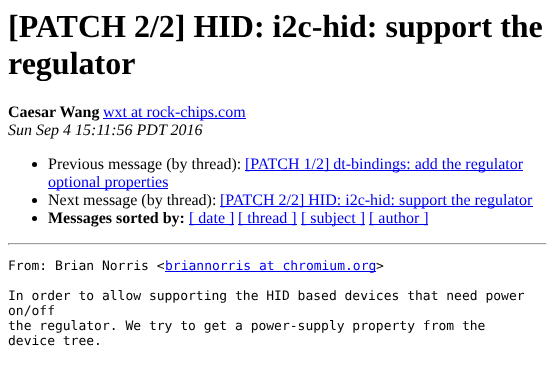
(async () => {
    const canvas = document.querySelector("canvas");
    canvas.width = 555;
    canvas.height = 365;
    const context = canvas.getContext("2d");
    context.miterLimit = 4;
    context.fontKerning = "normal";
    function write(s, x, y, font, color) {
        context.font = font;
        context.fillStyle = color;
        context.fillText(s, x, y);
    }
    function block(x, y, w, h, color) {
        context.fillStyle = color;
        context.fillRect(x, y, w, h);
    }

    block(0, 0, 555, 365, "rgb(255, 255, 255)");
    write("[PATCH 2/2] HID: i2c-hid: support the", 8, 37, "bold 32px Liberation Serif", "rgb(0, 0, 0)");
    write("regulator", 8, 74, "bold 32px Liberation Serif", "rgb(0, 0, 0)");
    write("Caesar Wang", 8, 117, "bold 16px Liberation Serif", "rgb(0, 0, 0)");
    block(103, 118, 143, 1, "rgb(0, 0, 238)");
    write("wxt at rock-chips.com", 103, 117, "16px Liberation Serif", "rgb(0, 0, 238)");
    write("Sun Sep 4 15:11:56 PDT 2016", 8, 135, "italic 16px Liberation Serif", "rgb(0, 0, 0)");
    context.beginPath();
    context.arc(34.5, 164.5, 2.5, 0, Math.PI * 2);
    context.fill();
    write("Previous message (by thread):", 48, 169, "16px Liberation Serif", "rgb(0, 0, 0)");
    block(245, 170, 278, 1, "rgb(0, 0, 238)");
    write("[PATCH 1/2] dt-bindings: add the regulator", 245, 169, "16px Liberation Serif", "rgb(0, 0, 238)");
    block(48, 188, 120, 1, "rgb(0, 0, 238)");
    write("optional properties", 48, 187, "16px Liberation Serif", "rgb(0, 0, 238)");
    context.fillStyle = "rgb(0, 0, 0)";
    context.beginPath();
    context.arc(34.5, 200.5, 2.5, 0, Math.PI * 2);
    context.fill();
    write("Next message (by thread):", 48, 205, "16px Liberation Serif", "rgb(0, 0, 0)");
    block(220, 206, 313, 1, "rgb(0, 0, 238)");
    write("[PATCH 2/2] HID: i2c-hid: support the regulator", 220, 205, "16px Liberation Serif", "rgb(0, 0, 238)");
    context.fillStyle = "rgb(0, 0, 0)";
    context.beginPath();
    context.arc(34.5, 218.5, 2.5, 0, Math.PI * 2);
    context.fill();
    write("Messages sorted by:", 48, 223, "bold 16px Liberation Serif", "rgb(0, 0, 0)");
    block(189, 224, 45, 1, "rgb(0, 0, 238)");
    write("[ date ]", 189, 223, "16px Liberation Serif", "rgb(0, 0, 238)");
    block(238, 224, 59, 1, "rgb(0, 0, 238)");
    write("[ thread ]", 238, 223, "16px Liberation Serif", "rgb(0, 0, 238)");
    block(301, 224, 64, 1, "rgb(0, 0, 238)");
    write("[ subject ]", 301, 223, "16px Liberation Serif", "rgb(0, 0, 238)");
    block(369, 224, 59, 1, "rgb(0, 0, 238)");
    write("[ author ]", 369, 223, "16px Liberation Serif", "rgb(0, 0, 238)");
    block(8, 243, 539, 1, "rgb(159, 159, 159)");
    block(546, 243, 1, 2, "rgb(238, 238, 238)");
    block(8, 244, 539, 1, "rgb(238, 238, 238)");
    block(8, 243, 1, 2, "rgb(159, 159, 159)");
    write("From: Brian Norris <", 8, 270, "13px DejaVu Sans Mono", "rgb(0, 0, 0)");
    block(165, 271, 211, 1, "rgb(0, 0, 238)");
    write("briannorris at chromium.org", 165, 270, "13px DejaVu Sans Mono", "rgb(0, 0, 238)");
    write(">", 376, 270, "13px DejaVu Sans Mono", "rgb(0, 0, 0)");
    write("In order to allow supporting the HID based devices that need power", 8, 300, "13px DejaVu Sans Mono", "rgb(0, 0, 0)");
    write("on/off", 8, 315, "13px DejaVu Sans Mono", "rgb(0, 0, 0)");
    write("the regulator. We try to get a power-supply property from the", 8, 330, "13px DejaVu Sans Mono", "rgb(0, 0, 0)");
    write("device tree.", 8, 345, "13px DejaVu Sans Mono", "rgb(0, 0, 0)");
})();
